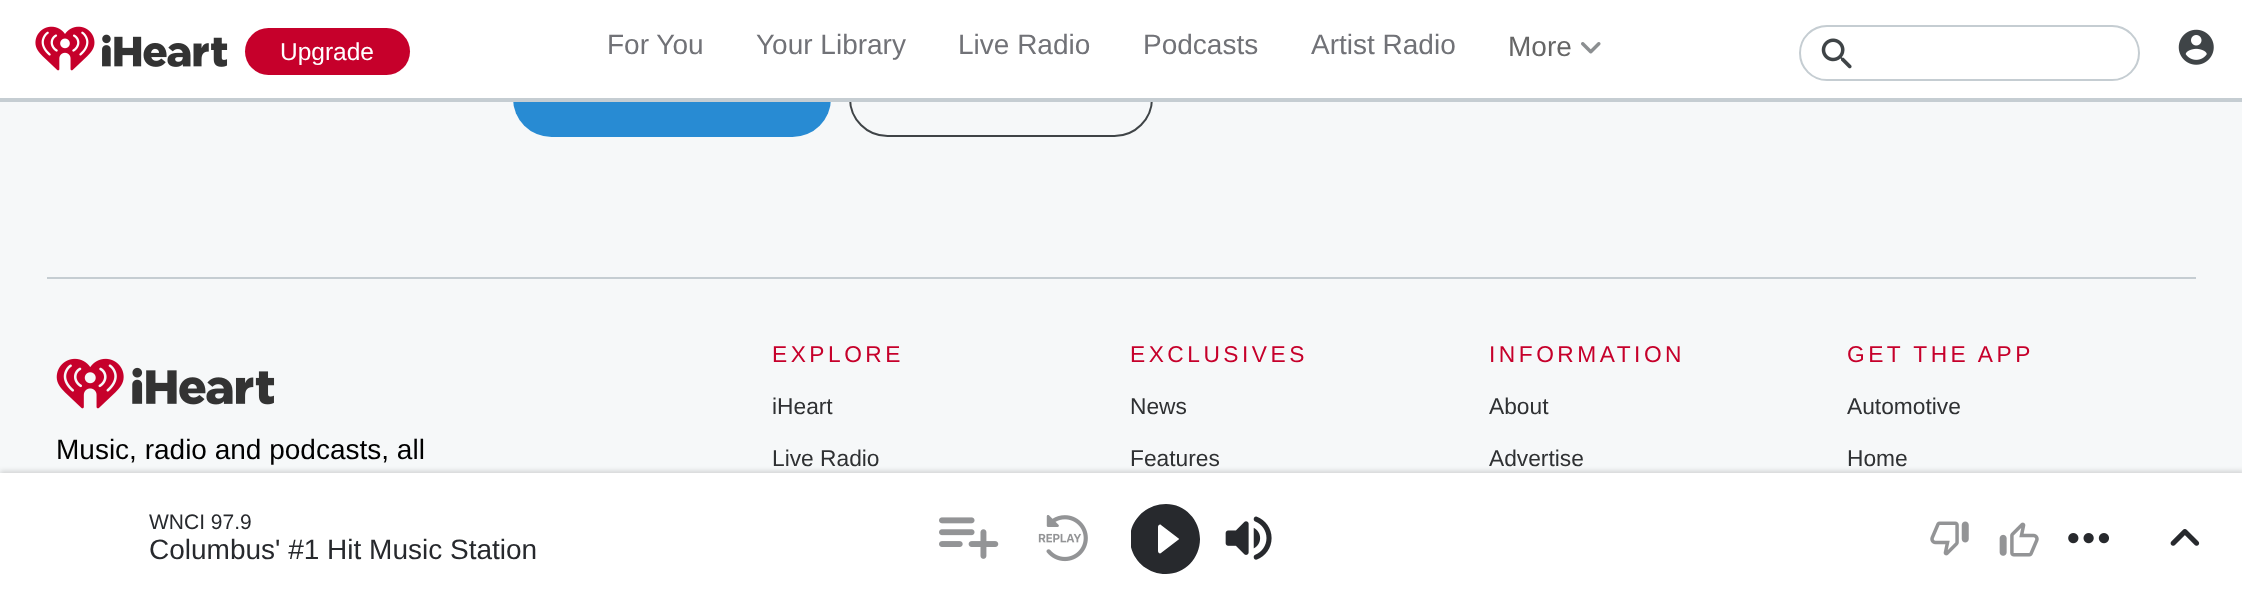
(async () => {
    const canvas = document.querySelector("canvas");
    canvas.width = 2242;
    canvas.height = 603;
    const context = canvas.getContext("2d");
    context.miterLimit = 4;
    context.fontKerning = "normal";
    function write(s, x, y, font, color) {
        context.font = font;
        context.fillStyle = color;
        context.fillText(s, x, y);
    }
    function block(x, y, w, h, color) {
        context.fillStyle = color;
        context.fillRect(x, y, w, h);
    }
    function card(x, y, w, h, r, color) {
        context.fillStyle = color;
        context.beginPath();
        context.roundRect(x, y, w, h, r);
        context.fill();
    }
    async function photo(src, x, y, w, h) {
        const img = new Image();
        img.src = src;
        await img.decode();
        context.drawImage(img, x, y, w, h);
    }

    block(0, 0, 2242, 603, "rgb(246, 248, 249)");
    card(513, 60, 318, 77, 38.5, "rgb(40, 139, 211)");
    context.beginPath();
    context.roundRect(850, 61, 302, 75, 37.5);
    context.strokeStyle = "rgb(63, 68, 71)";
    context.lineWidth = 2;
    context.stroke();
    block(0, 0, 2242, 98, "rgb(255, 255, 255)");
    block(0, 98, 2242, 4, "rgb(197, 205, 210)");
    await photo("media/1.png", 35, 26, 193, 45);
    card(245, 28, 165, 47, 23.5, "rgb(198, 0, 43)");
    write("Upgrade", 280, 60, "24.5px Liberation Sans", "rgb(255, 255, 255)");
    write("For You", 607, 54, "28px Liberation Sans", "rgb(113, 114, 119)");
    write("Your Library", 756, 54, "28px Liberation Sans", "rgb(113, 114, 119)");
    write("Live Radio", 958, 54, "28px Liberation Sans", "rgb(113, 114, 119)");
    write("Podcasts", 1143, 54, "28px Liberation Sans", "rgb(113, 114, 119)");
    write("Artist Radio", 1311, 54, "28px Liberation Sans", "rgb(113, 114, 119)");
    write("More", 1508, 56, "28px Liberation Sans", "rgb(102, 102, 102)");
    await photo("media/2.png", 1581, 42, 20, 12);
    context.beginPath();
    context.roundRect(1800, 26, 339, 54, 27);
    context.strokeStyle = "rgb(197, 205, 210)";
    context.stroke();
    await photo("media/3.png", 1821, 38, 31, 31);
    await photo("media/4.png", 2178, 29, 36, 36);
    block(47, 277, 2149, 2, "rgb(197, 205, 210)");
    await photo("media/5.png", 56, 358, 219, 51);
    write("Music, radio and podcasts, all", 56, 459, "28px Liberation Sans", "rgb(0, 0, 0)");
    context.letterSpacing = "3.5px";
    write("EXPLORE", 772, 362, "22.75px Liberation Sans", "rgb(198, 0, 43)");
    context.letterSpacing = "0px";
    write("iHeart", 772, 414, "22.75px Liberation Sans", "rgb(47, 49, 51)");
    write("Live Radio", 772, 466, "22.75px Liberation Sans", "rgb(47, 49, 51)");
    context.letterSpacing = "3.5px";
    write("EXCLUSIVES", 1130, 362, "22.75px Liberation Sans", "rgb(198, 0, 43)");
    context.letterSpacing = "0px";
    write("News", 1130, 414, "22.75px Liberation Sans", "rgb(47, 49, 51)");
    write("Features", 1130, 466, "22.75px Liberation Sans", "rgb(47, 49, 51)");
    context.letterSpacing = "3.5px";
    write("INFORMATION", 1489, 362, "22.75px Liberation Sans", "rgb(198, 0, 43)");
    context.letterSpacing = "0px";
    write("About", 1489, 414, "22.75px Liberation Sans", "rgb(47, 49, 51)");
    write("Advertise", 1489, 466, "22.75px Liberation Sans", "rgb(47, 49, 51)");
    context.letterSpacing = "3.5px";
    write("GET THE APP", 1847, 362, "22.75px Liberation Sans", "rgb(198, 0, 43)");
    context.letterSpacing = "0px";
    write("Automotive", 1847, 414, "22.75px Liberation Sans", "rgb(47, 49, 51)");
    write("Home", 1847, 466, "22.75px Liberation Sans", "rgb(47, 49, 51)");
    context.fillStyle = "rgba(0, 0, 0, 0.15)";
    context.filter = "blur(2.5px)";
    context.beginPath();
    context.rect(0, 471, 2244, 131);
    context.fill();
    context.filter = "none";
    block(0, 473, 2242, 130, "rgb(255, 255, 255)");
    write("WNCI 97.9", 149, 529, "21px Liberation Sans", "rgb(39, 41, 45)");
    write("Columbus' #1 Hit Music Station", 149, 559, "28px Liberation Sans", "rgb(39, 41, 45)");
    await photo("media/6.png", 939, 517, 60, 42);
    await photo("media/7.png", 1038, 515, 50, 47);
    context.save();
    context.beginPath();
    context.rect(1131, 504, 70, 70);
    context.clip();
    context.beginPath();
    context.moveTo(1166, 504);
    context.bezierCurveTo(1146, 504, 1130, 520, 1130, 539);
    context.bezierCurveTo(1130, 558, 1146, 574, 1166, 574);
    context.bezierCurveTo(1185, 574, 1200, 558, 1200, 539);
    context.bezierCurveTo(1200, 520, 1185, 504, 1166, 504);
    context.closePath();
    context.moveTo(1158, 551);
    context.lineTo(1158, 527);
    context.bezierCurveTo(1158, 525, 1160, 524, 1161, 525);
    context.lineTo(1178, 538);
    context.bezierCurveTo(1179, 538, 1179, 540, 1178, 540);
    context.lineTo(1161, 553);
    context.bezierCurveTo(1160, 554, 1158, 553, 1158, 551);
    context.closePath();
    context.fill();
    context.restore();
    await photo("media/8.png", 1225, 516, 47, 44);
    await photo("media/9.png", 1930, 521, 39, 35);
    await photo("media/10.png", 1999, 522, 40, 35);
    await photo("media/11.png", 2068, 533, 41, 11);
    await photo("media/12.png", 2170, 529, 30, 17);
})();
